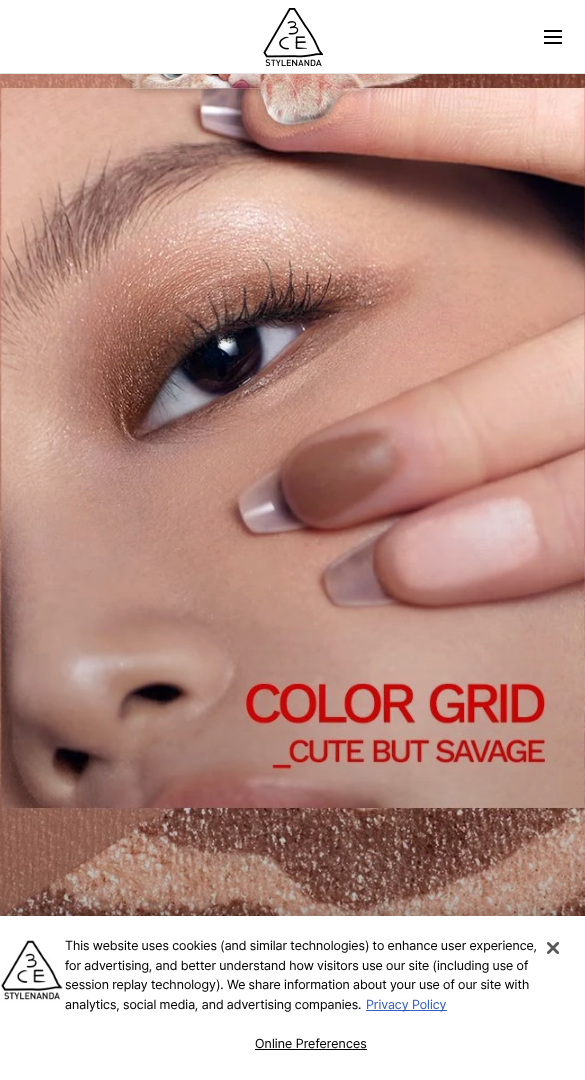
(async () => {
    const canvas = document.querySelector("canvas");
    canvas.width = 585;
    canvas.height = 1080;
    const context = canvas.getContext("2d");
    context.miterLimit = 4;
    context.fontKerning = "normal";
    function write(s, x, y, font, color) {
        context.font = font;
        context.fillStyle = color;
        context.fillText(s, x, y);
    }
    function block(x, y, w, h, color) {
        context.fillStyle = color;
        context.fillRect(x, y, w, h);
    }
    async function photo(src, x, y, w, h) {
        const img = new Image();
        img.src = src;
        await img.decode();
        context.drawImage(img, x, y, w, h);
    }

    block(0, 0, 585, 1080, "rgb(255, 255, 255)");
    block(0, 73, 585, 1, "rgb(227, 227, 227)");
    await photo("media/1.png", 263, 8, 60, 58);
    block(544, 30, 18, 2, "rgb(0, 0, 0)");
    block(544, 36, 18, 2, "rgb(0, 0, 0)");
    block(544, 42, 18, 2, "rgb(0, 0, 0)");
    await photo("media/2.png", 0, 74, 585, 842);
    context.fillStyle = "rgba(0, 0, 0, 0.2)";
    context.filter = "blur(9px)";
    context.beginPath();
    context.rect(0, 916, 585, 164);
    context.fill();
    context.filter = "none";
    block(0, 916, 585, 164, "rgb(255, 255, 255)");
    await photo("media/3.png", 1, 940, 62, 62);
    write("This website uses cookies (and similar technologies) to enhance user experience,", 65, 950, "13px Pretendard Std", "rgb(0, 0, 0)");
    write("for advertising, and better understand how visitors use our site (including use of", 65, 970, "13px Pretendard Std", "rgb(0, 0, 0)");
    write("session replay technology). We share information about your use of our site with", 65, 989, "13px Pretendard Std", "rgb(0, 0, 0)");
    write("analytics, social media, and advertising companies.", 65, 1009, "13px Pretendard Std", "rgb(0, 0, 0)");
    block(366, 1010, 81, 1, "rgb(56, 96, 190)");
    write("Privacy Policy", 366, 1009, "13px Pretendard Std", "rgb(56, 96, 190)");
    context.letterSpacing = "0.1px";
    write("Online Preferences", 255, 1048, "13px Pretendard Std", "rgb(0, 0, 0)");
    block(255, 1049, 112, 1, "rgb(0, 0, 0)");
    await photo("media/4.png", 547, 942, 12, 12);
})();
